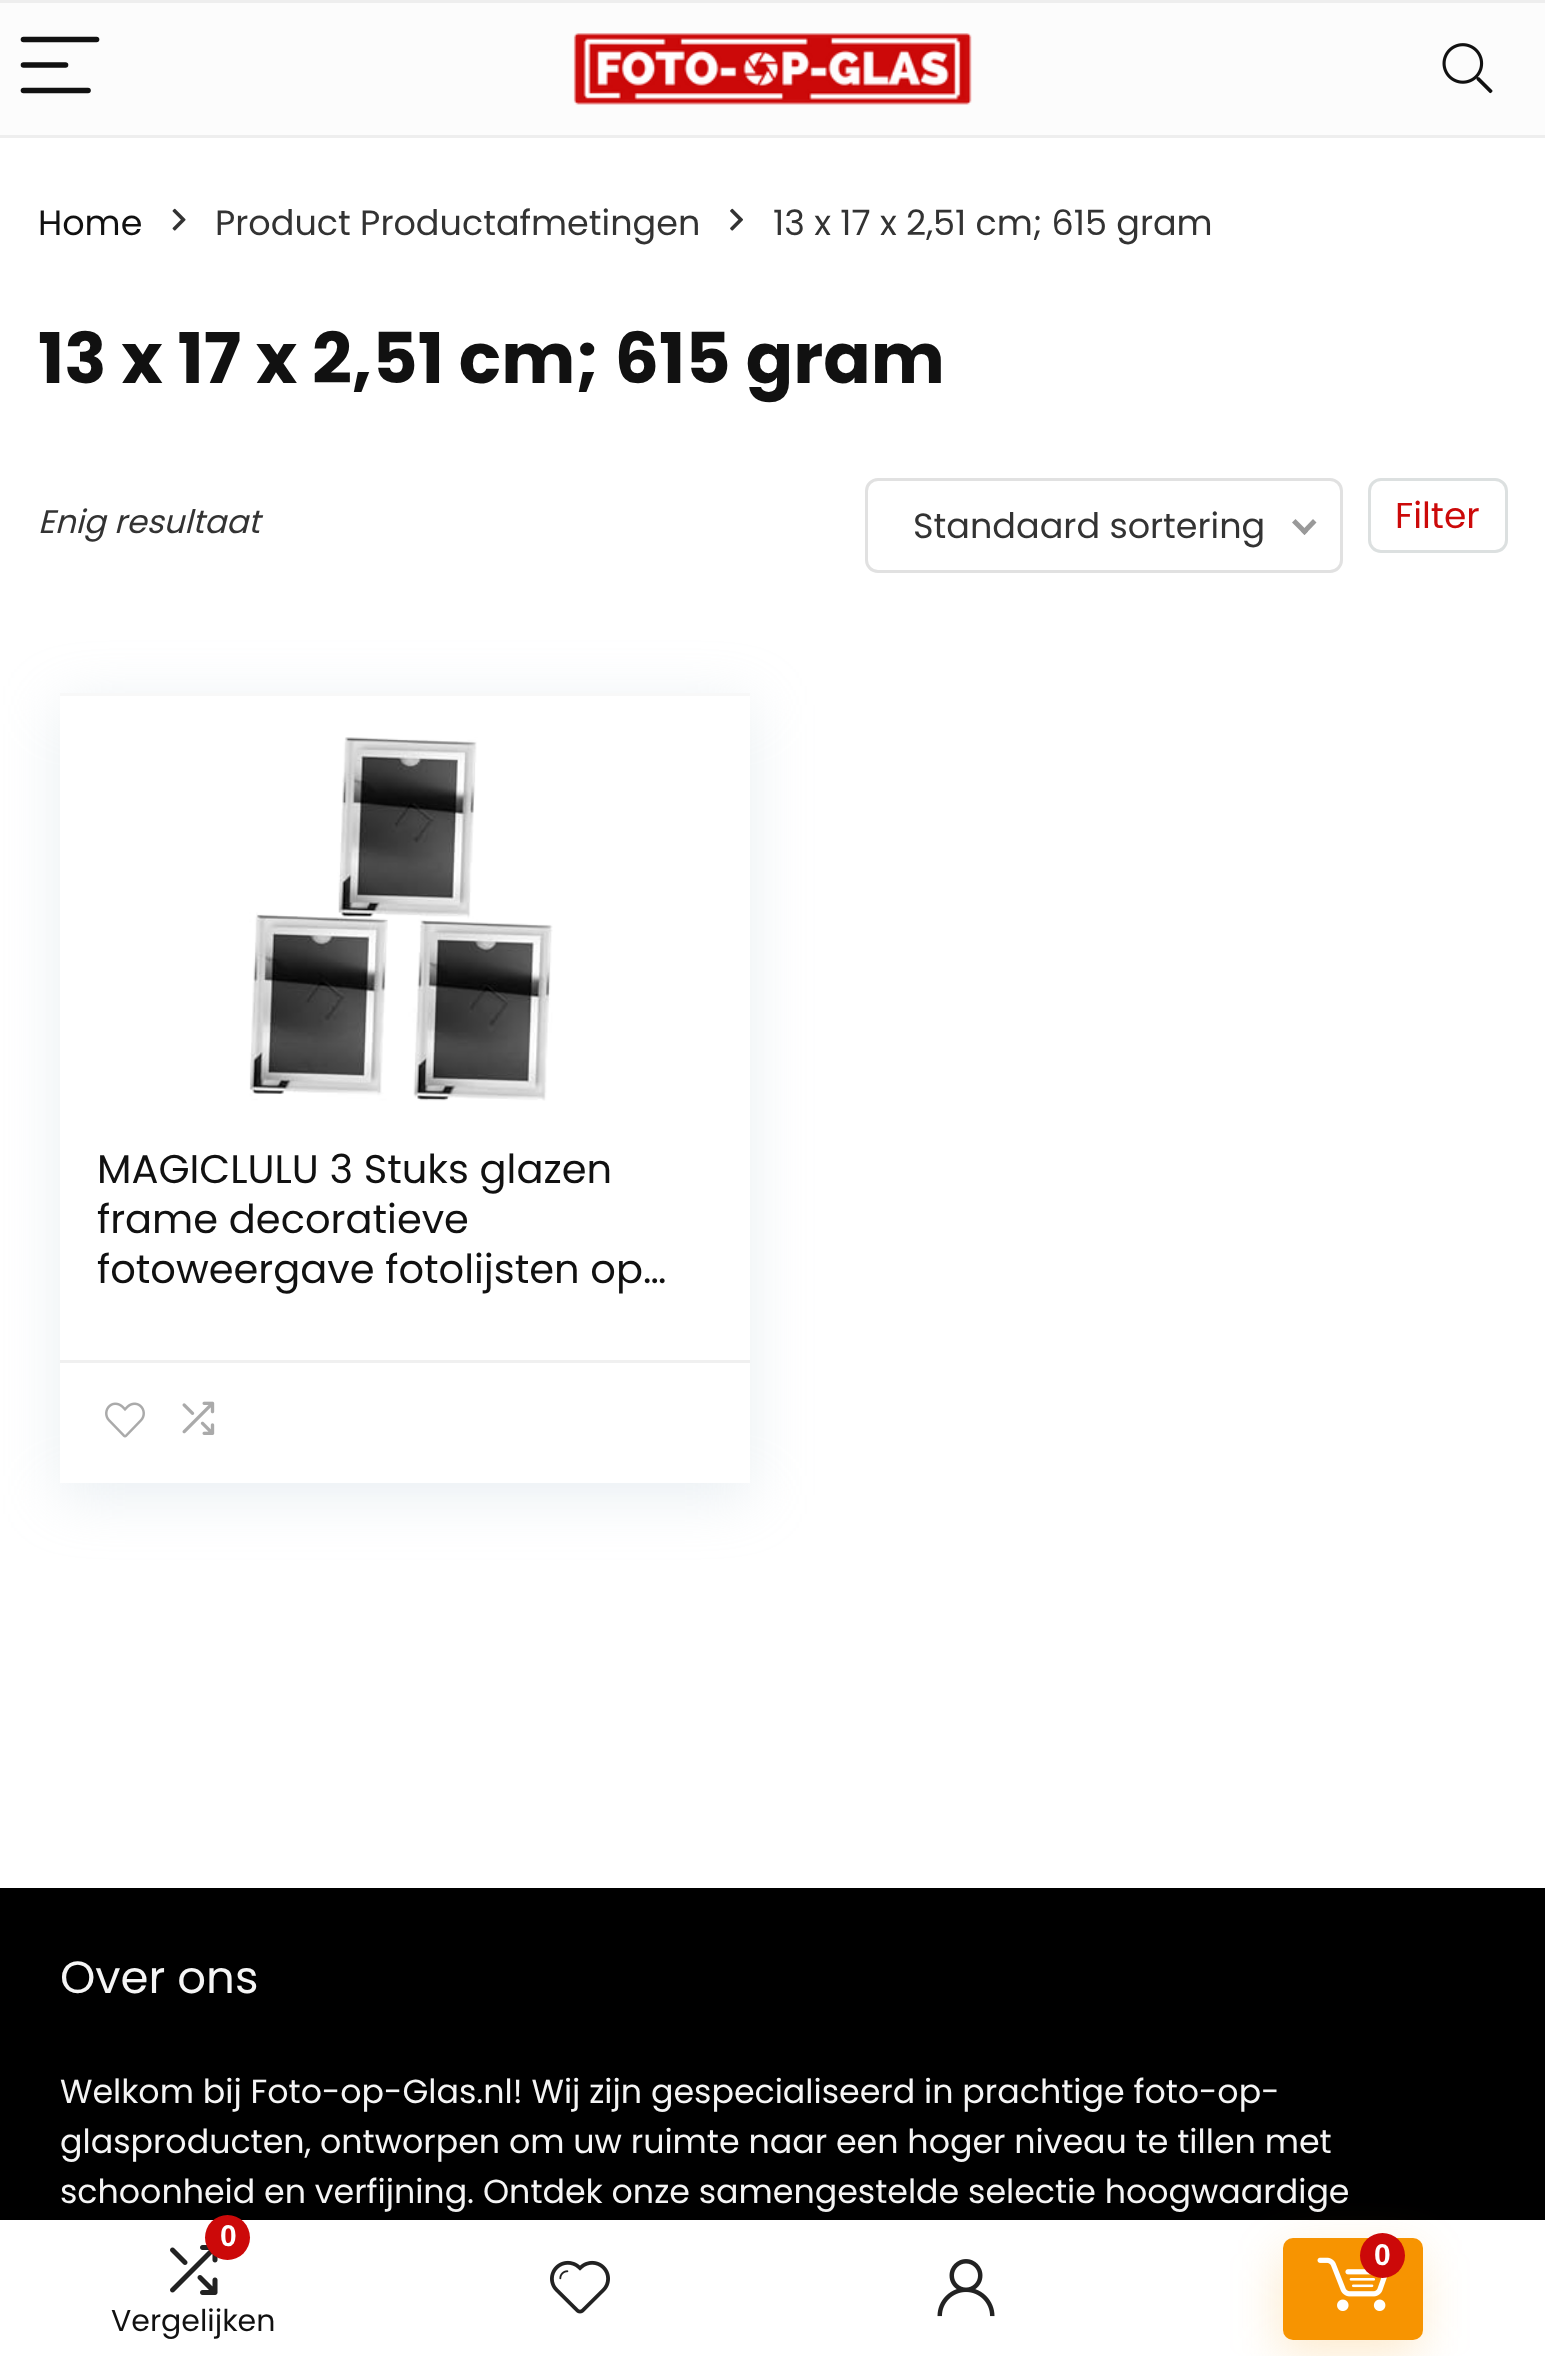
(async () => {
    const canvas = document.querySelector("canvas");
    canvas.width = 1545;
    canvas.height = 2356;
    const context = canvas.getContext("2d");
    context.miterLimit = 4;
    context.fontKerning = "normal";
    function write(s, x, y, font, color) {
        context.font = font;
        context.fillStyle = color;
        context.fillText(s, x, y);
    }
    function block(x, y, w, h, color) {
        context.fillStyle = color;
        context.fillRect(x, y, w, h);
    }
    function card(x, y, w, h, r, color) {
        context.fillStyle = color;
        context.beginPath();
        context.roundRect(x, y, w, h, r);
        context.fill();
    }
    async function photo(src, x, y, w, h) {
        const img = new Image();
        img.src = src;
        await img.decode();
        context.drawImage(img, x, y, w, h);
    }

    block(0, 0, 1545, 2356, "rgb(255, 255, 255)");
    write("Home", 38, 235, "35px Poppins", "rgb(17, 17, 17)");
    await photo("media/1.png", 172, 208, 14, 23);
    write("Product Productafmetingen", 215, 235, "35px Poppins", "rgb(51, 51, 51)");
    await photo("media/2.png", 730, 208, 13, 23);
    write("13 x 17 x 2,51 cm; 615 gram", 773, 235, "35px Poppins", "rgb(51, 51, 51)");
    write("13 x 17 x 2,51 cm; 615 gram", 38, 383, "bold 70px Poppins", "rgb(17, 17, 17)");
    write("Enig resultaat", 38, 533, "italic 32.5px Poppins", "rgb(51, 51, 51)");
    context.beginPath();
    context.roundRect(866.5, 479.5, 475, 92, 11.5);
    context.strokeStyle = "rgb(225, 225, 225)";
    context.lineWidth = 3;
    context.stroke();
    write("Standaard sortering", 913, 538, "35px Poppins", "rgb(51, 51, 51)");
    context.fillStyle = "rgb(153, 153, 153)";
    context.beginPath();
    context.moveTo(1313, 519);
    context.lineTo(1316.5, 522.5);
    context.lineTo(1304.5, 535);
    context.lineTo(1301, 531.5);
    context.closePath();
    context.fill();
    context.beginPath();
    context.moveTo(1295.5, 519);
    context.lineTo(1308, 531.5);
    context.lineTo(1304.5, 535);
    context.lineTo(1292, 522.5);
    context.closePath();
    context.fill();
    context.beginPath();
    context.roundRect(1369.5, 479.5, 137, 72, 11.5);
    context.strokeStyle = "rgb(220, 224, 224)";
    context.stroke();
    write("Filter", 1395, 528, "36px Poppins", "rgb(204, 9, 9)");
    context.fillStyle = "rgba(188, 207, 219, 0.35)";
    context.filter = "blur(29px)";
    context.beginPath();
    context.rect(60, 705, 690, 790);
    context.fill();
    context.filter = "none";
    block(60, 696, 690, 787, "rgb(255, 255, 255)");
    block(60, 693, 690, 3, "rgb(248, 248, 248)");
    await photo("media/3.png", 249, 737, 304, 364);
    write("MAGICLULU 3 Stuks glazen", 97, 1183, "40px Poppins", "rgb(17, 17, 17)");
    write("frame decoratieve", 97, 1233, "40px Poppins", "rgb(17, 17, 17)");
    write("fotoweergave fotolijsten op…", 97, 1283, "40px Poppins", "rgb(17, 17, 17)");
    block(60, 1360, 690, 3, "rgb(240, 240, 240)");
    await photo("media/4.png", 105, 1402, 40, 36);
    await photo("media/5.png", 182, 1401, 33, 34);
    block(0, 1888, 1545, 332, "rgb(0, 0, 0)");
    write("Over ons", 60, 1993, "45px Poppins", "rgb(245, 245, 245)");
    write("Welkom bij Foto-op-Glas.nl! Wij zijn gespecialiseerd in prachtige foto-op-", 60, 2103, "33.25px Poppins", "rgb(245, 245, 245)");
    write("glasproducten, ontworpen om uw ruimte naar een hoger niveau te tillen met", 60, 2153, "33.25px Poppins", "rgb(245, 245, 245)");
    write("schoonheid en verfijning. Ontdek onze samengestelde selectie hoogwaardige", 60, 2203, "33.25px Poppins", "rgb(245, 245, 245)");
    block(0, 3, 1545, 132, "rgb(252, 252, 252)");
    block(0, 0, 1545, 3, "rgb(238, 238, 238)");
    block(0, 135, 1545, 3, "rgb(238, 238, 238)");
    context.beginPath();
    context.moveTo(23.5, 39.5);
    context.lineTo(96.5, 39.5);
    context.strokeStyle = "rgb(17, 17, 17)";
    context.lineWidth = 5.6;
    context.lineCap = "round";
    context.stroke();
    context.beginPath();
    context.moveTo(23.5, 65);
    context.lineTo(65.5, 65);
    context.stroke();
    context.beginPath();
    context.moveTo(23.5, 90.5);
    context.lineTo(88, 90.5);
    context.stroke();
    await photo("media/6.png", 573, 33, 399, 72);
    await photo("media/7.png", 1442, 43, 51, 51);
    context.fillStyle = "rgba(0, 0, 0, 0.12)";
    context.filter = "blur(11px)";
    context.beginPath();
    context.rect(0, 2220, 1545, 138);
    context.fill();
    context.filter = "none";
    block(0, 2220, 1545, 136, "rgb(255, 255, 255)");
    await photo("media/8.png", 170, 2245, 48, 50);
    context.fillStyle = "rgb(204, 9, 9)";
    context.beginPath();
    context.arc(227.5, 2237.5, 22.5, 0, Math.PI * 2);
    context.fill();
    write("0", 220, 2246, "bold 30px Liberation Sans", "rgb(255, 255, 255)");
    write("Vergelijken", 111, 2331, "30px Poppins", "rgb(17, 17, 17)");
    context.fillStyle = "rgba(247, 148, 1, 0.2)";
    context.filter = "blur(24px)";
    context.beginPath();
    context.roundRect(1280, 2253, 140, 102, 10);
    context.fill();
    context.filter = "none";
    card(1283, 2238, 140, 102, 10, "rgb(247, 148, 1)");
    await photo("media/9.png", 1317, 2257, 70, 54);
    context.fillStyle = "rgb(204, 9, 9)";
    context.beginPath();
    context.arc(1382.5, 2255.5, 22.5, 0, Math.PI * 2);
    context.fill();
    write("0", 1374, 2265, "bold 30px Liberation Sans", "rgb(255, 255, 255)");
    await photo("media/10.png", 550, 2260, 60, 54);
    await photo("media/11.png", 937, 2259, 58, 58);
})();
